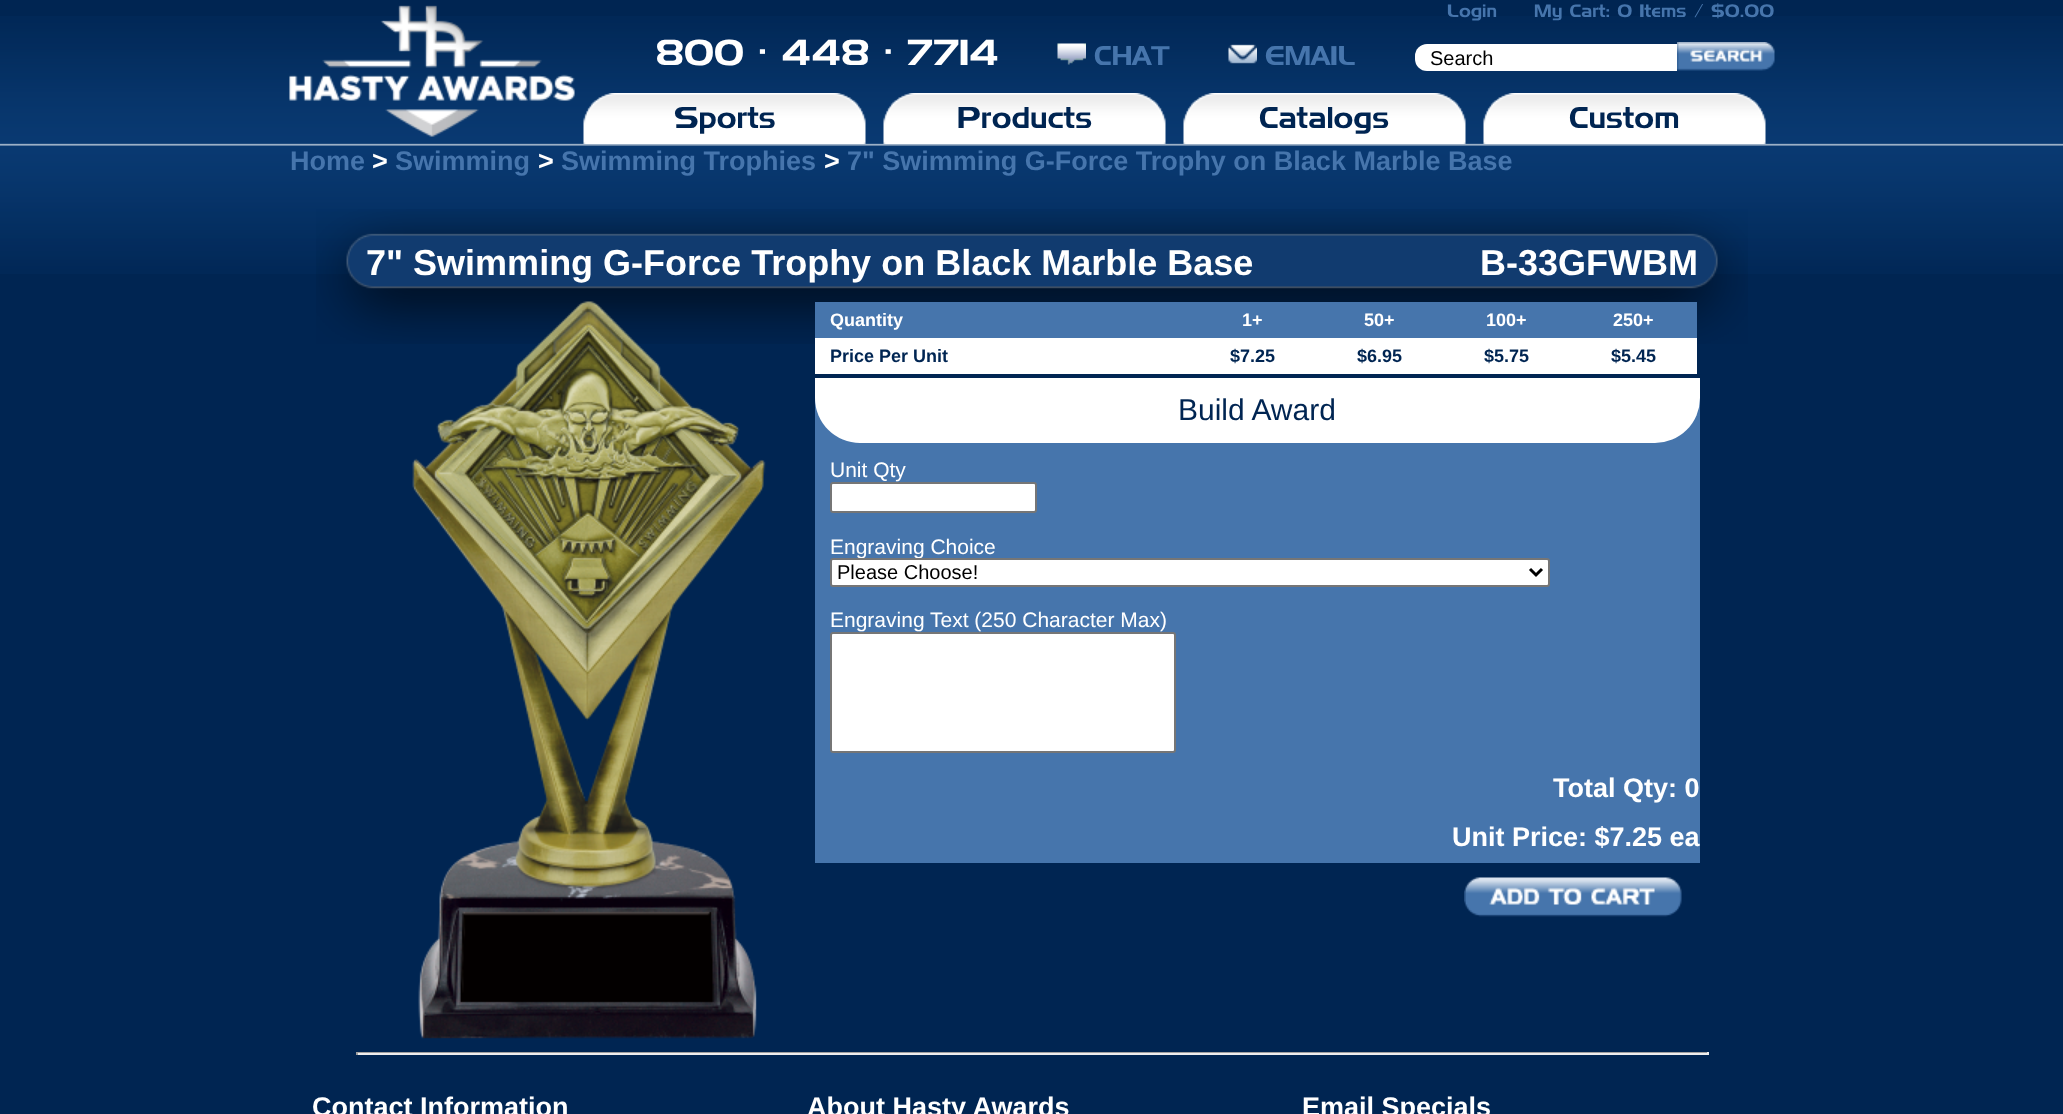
(async () => {
    const canvas = document.querySelector("canvas");
    canvas.width = 2063;
    canvas.height = 1114;
    const context = canvas.getContext("2d");
    context.miterLimit = 4;
    context.fontKerning = "normal";
    function write(s, x, y, font, color) {
        context.font = font;
        context.fillStyle = color;
        context.fillText(s, x, y);
    }
    function block(x, y, w, h, color) {
        context.fillStyle = color;
        context.fillRect(x, y, w, h);
    }
    async function photo(src, x, y, w, h) {
        const img = new Image();
        img.src = src;
        await img.decode();
        context.drawImage(img, x, y, w, h);
    }

    block(0, 0, 2063, 1114, "rgb(0, 37, 82)");
    await photo("media/1.png", 0, 16, 2063, 258);
    await photo("media/2.png", 289, 5, 286, 132);
    write("Login", 1447, 17, "100 18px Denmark", "rgb(70, 117, 172)");
    write("My Cart: 0 Items / $0.00", 1534, 17, "100 18px Denmark", "rgb(70, 117, 172)");
    write("800 · 448 · 7714", 656, 65, "100 36px Denmark", "rgb(255, 255, 255)");
    await photo("media/3.png", 1057, 43, 29, 22);
    write("CHAT", 1094, 65, "100 27px Denmark", "rgb(70, 117, 172)");
    await photo("media/4.png", 1228, 44, 29, 20);
    write("EMAIL", 1265, 65, "100 27px Denmark", "rgb(70, 117, 172)");
    context.fillStyle = "rgb(255, 255, 255)";
    context.beginPath();
    context.roundRect(1415, 44, 262, 27, [12, 0, 0, 12]);
    context.fill();
    write("Search", 1430, 65, "20px Liberation Sans", "rgb(0, 0, 0)");
    await photo("media/5.png", 1677, 42, 98, 29);
    await photo("media/6.png", 583, 93, 283, 51);
    write("Sports", 674, 128, "100 30px Denmark", "rgb(0, 37, 82)");
    await photo("media/7.png", 883, 93, 283, 51);
    write("Products", 957, 128, "100 30px Denmark", "rgb(0, 37, 82)");
    await photo("media/6.png", 1183, 93, 283, 51);
    write("Catalogs", 1259, 128, "100 30px Denmark", "rgb(0, 37, 82)");
    await photo("media/6.png", 1483, 93, 283, 51);
    write("Custom", 1569, 128, "100 30px Denmark", "rgb(0, 37, 82)");
    write("Home", 290, 170, "bold 27px Liberation Sans", "rgb(70, 117, 172)");
    write(">", 372, 170, "bold 27px Liberation Sans", "rgb(255, 255, 255)");
    write("Swimming", 395, 170, "bold 27px Liberation Sans", "rgb(70, 117, 172)");
    write(">", 538, 170, "bold 27px Liberation Sans", "rgb(255, 255, 255)");
    write("Swimming Trophies", 561, 170, "bold 27px Liberation Sans", "rgb(70, 117, 172)");
    write(">", 824, 170, "bold 27px Liberation Sans", "rgb(255, 255, 255)");
    write("7\" Swimming G-Force Trophy on Black Marble Base", 847, 170, "bold 27px Liberation Sans", "rgb(70, 117, 172)");
    await photo("media/8.png", 316, 209, 1432, 135);
    write("7\" Swimming G-Force Trophy on Black Marble Base", 366, 275, "bold 36px Liberation Sans", "rgb(255, 255, 255)");
    write("B-33GFWBM", 1480, 275, "bold 36px Liberation Sans", "rgb(255, 255, 255)");
    await photo("media/9.png", 412, 301, 354, 738);
    block(815, 302, 882, 36, "rgb(70, 117, 172)");
    write("Quantity", 830, 326, "bold 18px Liberation Sans", "rgb(255, 255, 255)");
    write("1+", 1242, 326, "bold 18px Liberation Sans", "rgb(255, 255, 255)");
    write("50+", 1364, 326, "bold 18px Liberation Sans", "rgb(255, 255, 255)");
    write("100+", 1486, 326, "bold 18px Liberation Sans", "rgb(255, 255, 255)");
    write("250+", 1613, 326, "bold 18px Liberation Sans", "rgb(255, 255, 255)");
    block(815, 338, 882, 36, "rgb(255, 255, 255)");
    write("Price Per Unit", 830, 362, "bold 18px Liberation Sans", "rgb(0, 37, 82)");
    write("$7.25", 1230, 362, "bold 18px Liberation Sans", "rgb(0, 37, 82)");
    write("$6.95", 1357, 362, "bold 18px Liberation Sans", "rgb(0, 37, 82)");
    write("$5.75", 1484, 362, "bold 18px Liberation Sans", "rgb(0, 37, 82)");
    write("$5.45", 1611, 362, "bold 18px Liberation Sans", "rgb(0, 37, 82)");
    block(815, 398, 885, 465, "rgb(70, 117, 172)");
    context.fillStyle = "rgb(255, 255, 255)";
    context.beginPath();
    context.roundRect(815, 378, 885, 65, [0, 0, 45, 45]);
    context.fill();
    write("Build Award", 1178, 420, "30px Liberation Sans", "rgb(0, 37, 82)");
    write("Unit Qty", 830, 477, "21px Liberation Sans", "rgb(255, 255, 255)");
    context.beginPath();
    context.roundRect(831, 483, 205, 29, 2);
    context.fill();
    context.strokeStyle = "rgb(118, 118, 118)";
    context.lineWidth = 2;
    context.stroke();
    write("Engraving Choice", 830, 554, "21px Liberation Sans", "rgb(255, 255, 255)");
    context.beginPath();
    context.roundRect(831, 559, 718, 27, 2);
    context.fill();
    context.stroke();
    context.beginPath();
    context.moveTo(1530, 569);
    context.lineTo(1536, 575);
    context.lineTo(1542, 569);
    context.strokeStyle = "rgb(0, 0, 0)";
    context.lineWidth = 3;
    context.stroke();
    write("Please Choose!", 837, 579, "20px Liberation Sans", "rgb(0, 0, 0)");
    write("Engraving Text (250 Character Max)", 830, 627, "21px Liberation Sans", "rgb(255, 255, 255)");
    context.beginPath();
    context.roundRect(831, 633, 344, 119, 2);
    context.fill();
    context.strokeStyle = "rgb(118, 118, 118)";
    context.lineWidth = 2;
    context.stroke();
    write("Total Qty: 0", 1553, 797, "bold 27px Liberation Sans", "rgb(255, 255, 255)");
    write("Unit Price: $7.25 ea", 1452, 846, "bold 27px Liberation Sans", "rgb(255, 255, 255)");
    await photo("media/10.png", 1464, 877, 218, 40);
    block(356, 1052, 1353, 1, "rgb(159, 159, 159)");
    block(1707, 1052, 2, 3, "rgb(238, 238, 238)");
    block(356, 1053, 1353, 2, "rgb(238, 238, 238)");
    block(356, 1052, 2, 3, "rgb(159, 159, 159)");
    write("Contact Information", 312, 1116, "bold 27px Liberation Sans", "rgb(255, 255, 255)");
    write("About Hasty Awards", 807, 1116, "bold 27px Liberation Sans", "rgb(255, 255, 255)");
    write("Email Specials", 1302, 1116, "bold 27px Liberation Sans", "rgb(255, 255, 255)");
})();
